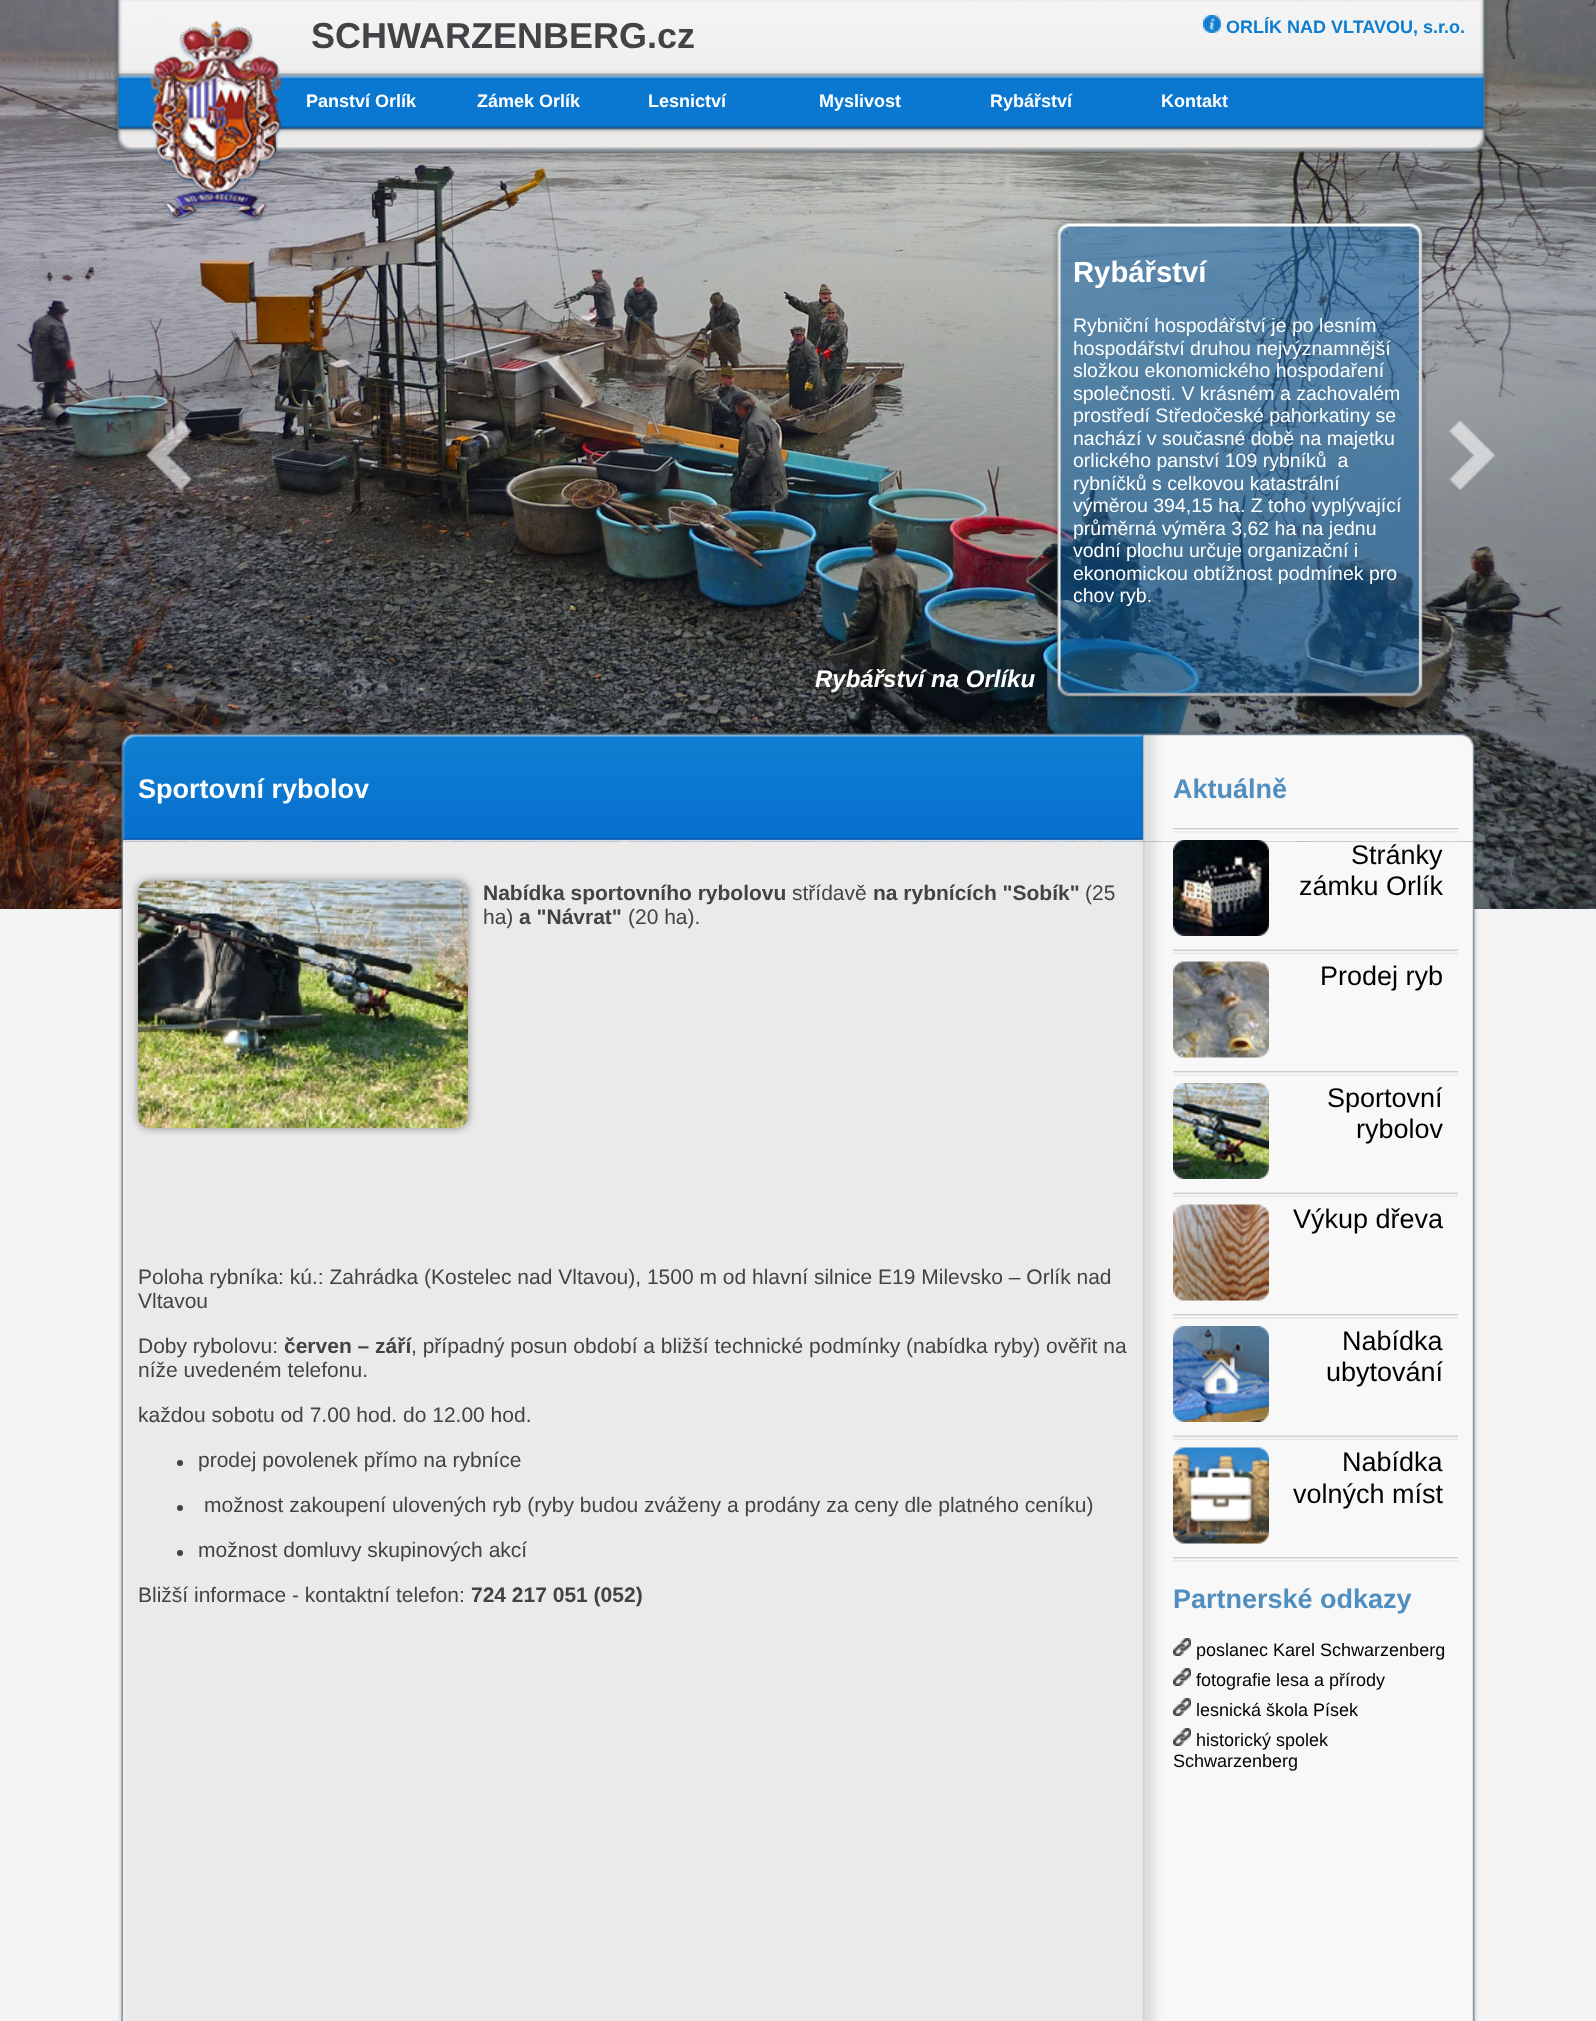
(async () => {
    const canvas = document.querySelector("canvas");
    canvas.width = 1596;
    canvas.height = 2021;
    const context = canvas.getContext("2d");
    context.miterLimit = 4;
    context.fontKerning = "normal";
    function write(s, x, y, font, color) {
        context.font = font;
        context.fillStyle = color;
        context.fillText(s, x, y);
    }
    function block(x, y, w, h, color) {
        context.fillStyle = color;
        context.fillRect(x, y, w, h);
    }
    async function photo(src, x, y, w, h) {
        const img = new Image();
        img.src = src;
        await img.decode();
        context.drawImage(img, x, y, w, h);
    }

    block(0, 0, 1596, 2021, "rgb(244, 244, 244)");
    await photo("media/1.png", 0, 0, 1596, 909);
    await photo("media/2.png", 113, 0, 1376, 156);
    await photo("media/3.png", 148, 20, 135, 203);
    write("SCHWARZENBERG.cz", 311, 48, "bold 36px Liberation Sans", "rgb(67, 66, 70)");
    await photo("media/4.png", 1203, 15, 18, 18);
    write("ORLÍK NAD VLTAVOU, s.r.o.", 1226, 33, "bold 18px Liberation Sans", "rgb(13, 125, 209)");
    write("Panství Orlík", 306, 107, "bold 18px Liberation Sans", "rgb(255, 255, 255)");
    write("Zámek Orlík", 477, 107, "bold 18px Liberation Sans", "rgb(255, 255, 255)");
    write("Lesnictví", 648, 107, "bold 18px Liberation Sans", "rgb(255, 255, 255)");
    write("Myslivost", 819, 107, "bold 18px Liberation Sans", "rgb(255, 255, 255)");
    write("Rybářství", 990, 107, "bold 18px Liberation Sans", "rgb(255, 255, 255)");
    write("Kontakt", 1161, 107, "bold 18px Liberation Sans", "rgb(255, 255, 255)");
    await photo("media/5.png", 145, 420, 48, 71);
    await photo("media/6.png", 1052, 219, 375, 481);
    write("Rybářství", 1073, 282, "bold 29.25px Liberation Sans", "rgb(255, 255, 255)");
    write("Rybniční hospodářství je po lesním", 1073, 332, "19.5px Liberation Sans", "rgb(255, 255, 255)");
    write("hospodářství druhou nejvýznamnější", 1073, 355, "19.5px Liberation Sans", "rgb(255, 255, 255)");
    write("složkou ekonomického hospodaření", 1073, 377, "19.5px Liberation Sans", "rgb(255, 255, 255)");
    write("společnosti. V krásném a zachovalém", 1073, 400, "19.5px Liberation Sans", "rgb(255, 255, 255)");
    write("prostředí Středočeské pahorkatiny se", 1073, 422, "19.5px Liberation Sans", "rgb(255, 255, 255)");
    write("nachází v současné době na majetku", 1073, 445, "19.5px Liberation Sans", "rgb(255, 255, 255)");
    write("orlického panství 109 rybníků  a", 1073, 467, "19.5px Liberation Sans", "rgb(255, 255, 255)");
    write("rybníčků s celkovou katastrální", 1073, 490, "19.5px Liberation Sans", "rgb(255, 255, 255)");
    write("výměrou 394,15 ha. Z toho vyplývající", 1073, 512, "19.5px Liberation Sans", "rgb(255, 255, 255)");
    write("průměrná výměra 3,62 ha na jednu", 1073, 535, "19.5px Liberation Sans", "rgb(255, 255, 255)");
    write("vodní plochu určuje organizační i", 1073, 557, "19.5px Liberation Sans", "rgb(255, 255, 255)");
    write("ekonomickou obtížnost podmínek pro", 1073, 580, "19.5px Liberation Sans", "rgb(255, 255, 255)");
    write("chov ryb.", 1073, 602, "19.5px Liberation Sans", "rgb(255, 255, 255)");
    await photo("media/7.png", 1449, 420, 47, 71);
    write("Rybářství na Orlíku", 815, 687, "italic bold 24px Liberation Sans", "rgb(255, 255, 255)");
    await photo("media/8.png", 119, 731, 1358, 111);
    await photo("media/9.png", 118, 841, 1360, 1180);
    write("Sportovní rybolov", 138, 798, "bold 27px Liberation Sans", "rgb(255, 255, 255)");
    context.fillStyle = "rgb(136, 136, 138)";
    context.filter = "blur(4.5px)";
    context.beginPath();
    context.roundRect(138, 881, 330, 247, 12);
    context.fill();
    context.filter = "none";
    await photo("media/10.png", 138, 880, 330, 248);
    write("Nabídka sportovního rybolovu", 483, 900, "bold 21px Liberation Sans", "rgb(67, 66, 70)");
    write("střídavě", 792, 900, "21px Liberation Sans", "rgb(67, 66, 70)");
    write("na rybnících \"Sobík\"", 873, 900, "bold 21px Liberation Sans", "rgb(67, 66, 70)");
    write("(25", 1085, 900, "21px Liberation Sans", "rgb(67, 66, 70)");
    write("ha)", 483, 924, "21px Liberation Sans", "rgb(67, 66, 70)");
    write("a \"Návrat\"", 519, 924, "bold 21px Liberation Sans", "rgb(67, 66, 70)");
    write("(20 ha).", 628, 924, "21px Liberation Sans", "rgb(67, 66, 70)");
    write("Poloha rybníka: kú.: Zahrádka (Kostelec nad Vltavou), 1500 m od hlavní silnice E19 Milevsko – Orlík nad", 138, 1284, "21px Liberation Sans", "rgb(67, 66, 70)");
    write("Vltavou", 138, 1308, "21px Liberation Sans", "rgb(67, 66, 70)");
    write("Doby rybolovu:", 138, 1353, "21px Liberation Sans", "rgb(67, 66, 70)");
    write("červen – září", 284, 1353, "bold 21px Liberation Sans", "rgb(67, 66, 70)");
    write(", případný posun období a bližší technické podmínky (nabídka ryby) ověřit na", 411, 1353, "21px Liberation Sans", "rgb(67, 66, 70)");
    write("níže uvedeném telefonu.", 138, 1377, "21px Liberation Sans", "rgb(67, 66, 70)");
    write("každou sobotu od 7.00 hod. do 12.00 hod.", 138, 1422, "21px Liberation Sans", "rgb(67, 66, 70)");
    context.beginPath();
    context.arc(180, 1463, 3, 0, Math.PI * 2);
    context.fill();
    write("prodej povolenek přímo na rybníce", 198, 1467, "21px Liberation Sans", "rgb(67, 66, 70)");
    context.beginPath();
    context.arc(180, 1508, 3, 0, Math.PI * 2);
    context.fill();
    write("možnost zakoupení ulovených ryb (ryby budou zváženy a prodány za ceny dle platného ceníku)", 204, 1512, "21px Liberation Sans", "rgb(67, 66, 70)");
    context.beginPath();
    context.arc(180, 1553, 3, 0, Math.PI * 2);
    context.fill();
    write("možnost domluvy skupinových akcí", 198, 1557, "21px Liberation Sans", "rgb(67, 66, 70)");
    write("Bližší informace - kontaktní telefon:", 138, 1602, "21px Liberation Sans", "rgb(67, 66, 70)");
    write("724 217 051 (052)", 471, 1602, "bold 21px Liberation Sans", "rgb(67, 66, 70)");
    write("Aktuálně", 1173, 798, "bold 27px Liberation Sans", "rgb(80, 142, 191)");
    await photo("media/11.png", 1173, 828, 285, 5);
    await photo("media/12.png", 1173, 840, 96, 96);
    write("Stránky", 1351, 864, "27px Liberation Sans", "rgb(0, 0, 0)");
    write("zámku Orlík", 1299, 895, "27px Liberation Sans", "rgb(0, 0, 0)");
    await photo("media/13.png", 1173, 949, 285, 5);
    await photo("media/14.png", 1173, 961, 96, 97);
    write("Prodej ryb", 1320, 985, "27px Liberation Sans", "rgb(0, 0, 0)");
    await photo("media/11.png", 1173, 1071, 285, 5);
    await photo("media/15.png", 1173, 1083, 96, 96);
    write("Sportovní", 1327, 1107, "27px Liberation Sans", "rgb(0, 0, 0)");
    write("rybolov", 1356, 1138, "27px Liberation Sans", "rgb(0, 0, 0)");
    await photo("media/13.png", 1173, 1192, 285, 5);
    await photo("media/16.png", 1173, 1204, 96, 97);
    write("Výkup dřeva", 1293, 1228, "27px Liberation Sans", "rgb(0, 0, 0)");
    await photo("media/11.png", 1173, 1314, 285, 5);
    await photo("media/17.png", 1173, 1326, 96, 96);
    write("Nabídka", 1342, 1350, "27px Liberation Sans", "rgb(0, 0, 0)");
    write("ubytování", 1326, 1381, "27px Liberation Sans", "rgb(0, 0, 0)");
    await photo("media/13.png", 1173, 1435, 285, 5);
    await photo("media/18.png", 1173, 1447, 96, 97);
    write("Nabídka", 1342, 1471, "27px Liberation Sans", "rgb(0, 0, 0)");
    write("volných míst", 1293, 1503, "27px Liberation Sans", "rgb(0, 0, 0)");
    await photo("media/11.png", 1173, 1557, 285, 5);
    write("Partnerské odkazy", 1173, 1608, "bold 27px Liberation Sans", "rgb(80, 142, 191)");
    await photo("media/19.png", 1173, 1638, 18, 18);
    write("poslanec Karel Schwarzenberg", 1196, 1656, "18px Liberation Sans", "rgb(0, 0, 0)");
    await photo("media/19.png", 1173, 1668, 18, 18);
    write("fotografie lesa a přírody", 1196, 1686, "18px Liberation Sans", "rgb(0, 0, 0)");
    await photo("media/19.png", 1173, 1698, 18, 18);
    write("lesnická škola Písek", 1196, 1716, "18px Liberation Sans", "rgb(0, 0, 0)");
    await photo("media/19.png", 1173, 1728, 18, 18);
    write("historický spolek", 1196, 1746, "18px Liberation Sans", "rgb(0, 0, 0)");
    write("Schwarzenberg", 1173, 1767, "18px Liberation Sans", "rgb(0, 0, 0)");
})();
